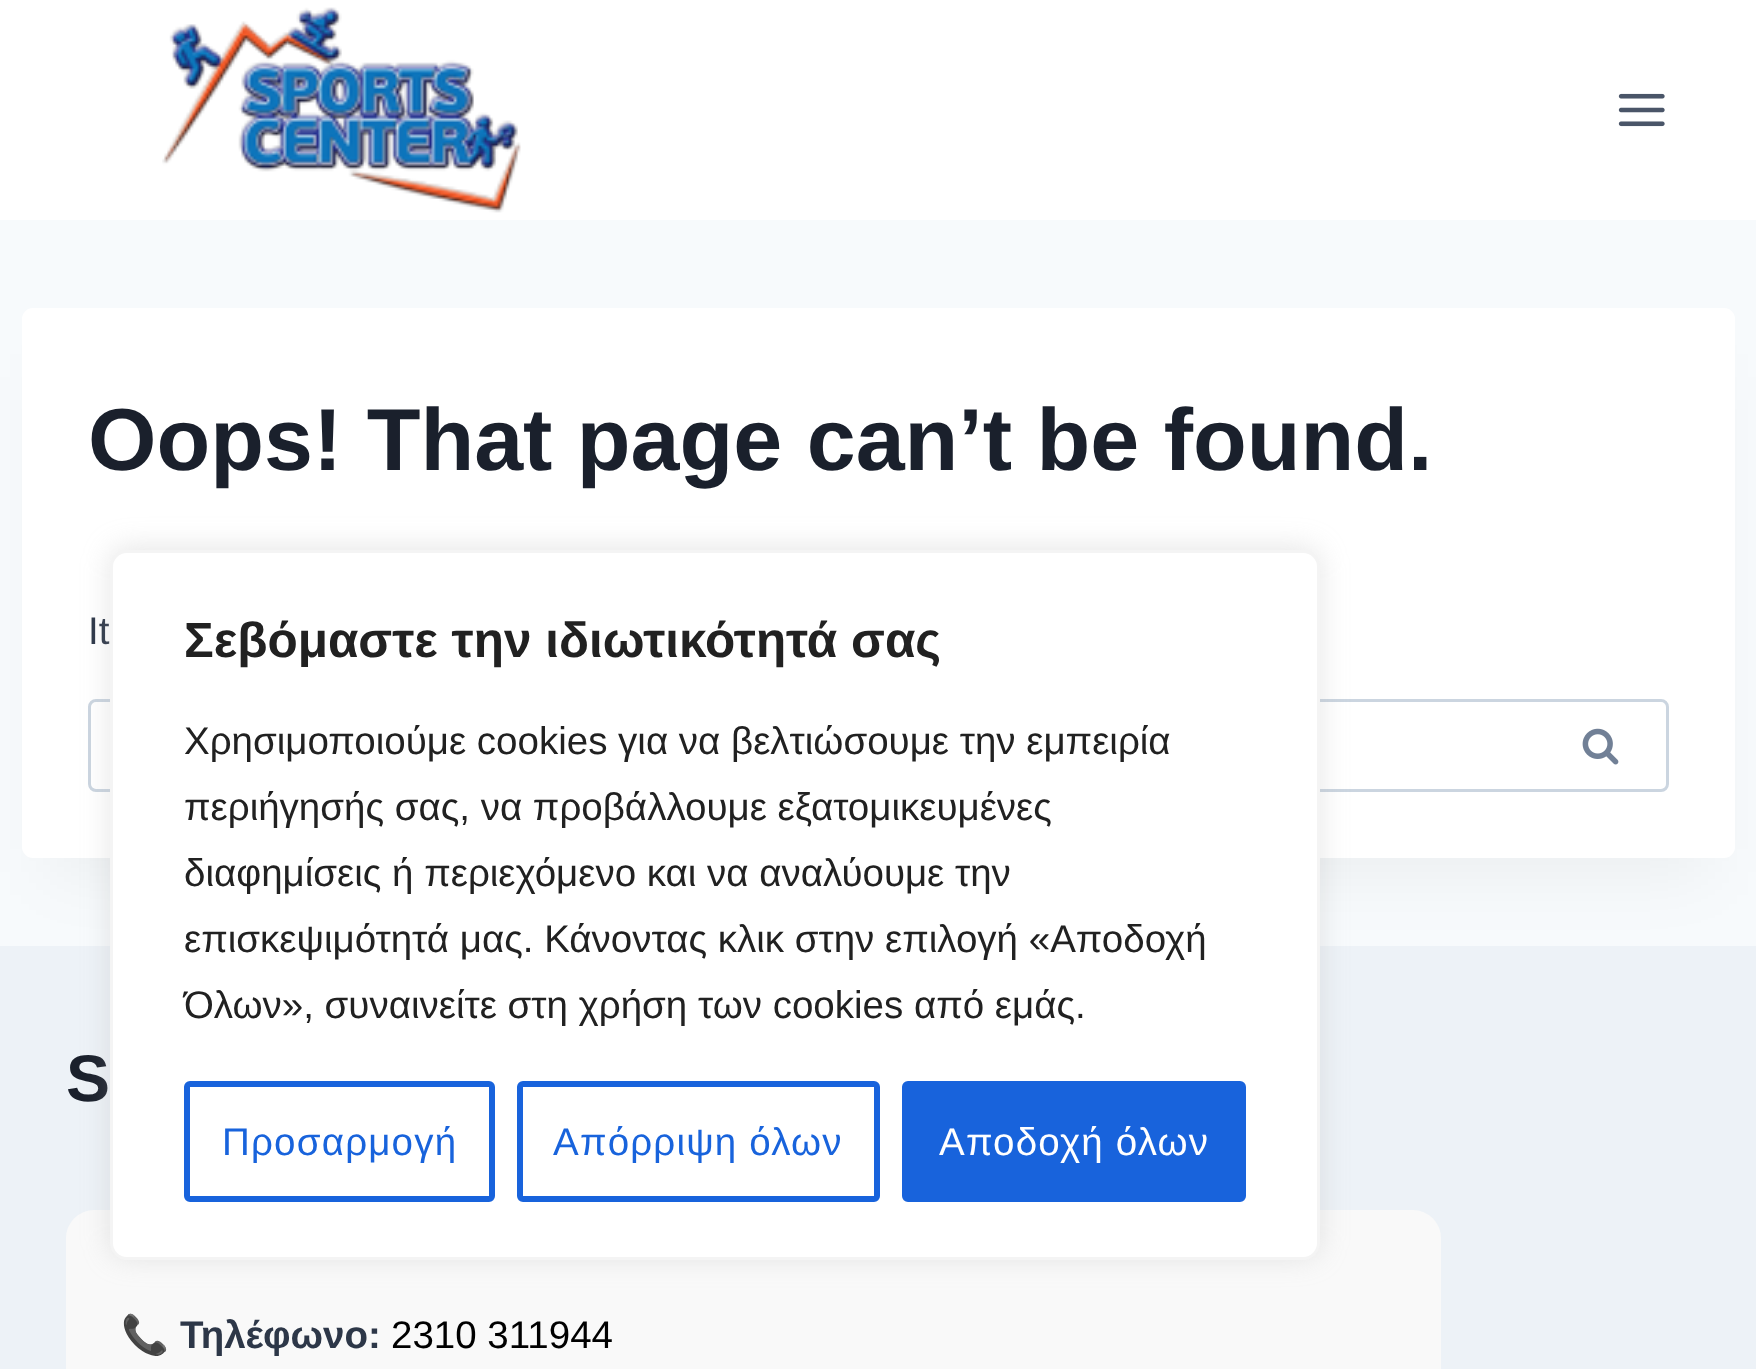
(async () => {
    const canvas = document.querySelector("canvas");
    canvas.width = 1756;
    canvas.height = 1369;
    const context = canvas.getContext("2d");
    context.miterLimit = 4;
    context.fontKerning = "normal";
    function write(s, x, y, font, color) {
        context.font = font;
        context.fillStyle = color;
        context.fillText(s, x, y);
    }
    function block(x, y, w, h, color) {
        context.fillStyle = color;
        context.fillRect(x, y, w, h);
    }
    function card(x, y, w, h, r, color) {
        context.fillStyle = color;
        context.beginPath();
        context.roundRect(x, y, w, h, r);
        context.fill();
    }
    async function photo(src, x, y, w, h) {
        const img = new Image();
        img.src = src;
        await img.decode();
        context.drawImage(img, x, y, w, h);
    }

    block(0, 0, 1756, 1369, "rgb(247, 250, 252)");
    block(0, 0, 1756, 220, "rgb(255, 255, 255)");
    await photo("media/1.png", 162, 7, 359, 206);
    await photo("media/2.png", 1618, 93, 47, 34);
    block(0, 946, 1756, 423, "rgb(237, 242, 247)");
    context.fillStyle = "rgba(0, 0, 0, 0.05)";
    context.filter = "blur(34.5px)";
    context.beginPath();
    context.rect(50, 377, 1658, 495);
    context.fill();
    context.filter = "none";
    card(22, 308, 1713, 550, 11, "rgb(255, 255, 255)");
    write("Oops! That page can’t be found.", 88, 470, "bold 88px Liberation Sans", "rgb(26, 32, 44)");
    write("It", 88, 644, "38.5px Liberation Sans", "rgb(45, 55, 72)");
    context.beginPath();
    context.roundRect(89.5, 700.5, 1578, 90, 6.5);
    context.strokeStyle = "rgb(203, 213, 224)";
    context.lineWidth = 3;
    context.stroke();
    await photo("media/3.png", 1582, 728, 37, 37);
    write("S", 66, 1101, "bold 66px Liberation Sans", "rgb(26, 32, 44)");
    card(66, 1210, 1375, 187, 28, "rgb(249, 249, 249)");
    write("📞", 121, 1348, "38.5px Noto Color Emoji", "rgb(45, 55, 72)");
    write("Τηλέφωνο:", 180, 1348, "bold 38.5px Liberation Sans", "rgb(45, 55, 72)");
    write("2310 311944", 391, 1348, "38.5px Liberation Sans", "rgb(0, 0, 0)");
    context.fillStyle = "rgba(172, 171, 171, 0.3)";
    context.filter = "blur(14px)";
    context.beginPath();
    context.roundRect(110, 547, 1210, 710, 17);
    context.fill();
    context.filter = "none";
    context.fillStyle = "rgb(255, 255, 255)";
    context.beginPath();
    context.roundRect(111.5, 551.5, 1207, 707, 15.5);
    context.fill();
    context.strokeStyle = "rgb(244, 244, 244)";
    context.stroke();
    write("Σεβόμαστε την ιδιωτικότητά σας", 184, 657, "bold 49.5px Liberation Sans", "rgb(33, 33, 33)");
    write("Χρησιμοποιούμε cookies για να βελτιώσουμε την εμπειρία", 184, 754, "38.5px Liberation Sans", "rgb(33, 33, 33)");
    write("περιήγησής σας, να προβάλλουμε εξατομικευμένες", 184, 820, "38.5px Liberation Sans", "rgb(33, 33, 33)");
    write("διαφημίσεις ή περιεχόμενο και να αναλύουμε την", 184, 886, "38.5px Liberation Sans", "rgb(33, 33, 33)");
    write("επισκεψιμότητά μας. Κάνοντας κλικ στην επιλογή «Αποδοχή", 184, 952, "38.5px Liberation Sans", "rgb(33, 33, 33)");
    write("Όλων», συναινείτε στη χρήση των cookies από εμάς.", 184, 1018, "38.5px Liberation Sans", "rgb(33, 33, 33)");
    context.beginPath();
    context.roundRect(187, 1084, 305, 115, 3);
    context.strokeStyle = "rgb(24, 99, 220)";
    context.lineWidth = 6;
    context.stroke();
    context.letterSpacing = "1.2px";
    write("Προσαρμογή", 222, 1155, "38.5px Liberation Sans", "rgb(24, 99, 220)");
    context.beginPath();
    context.roundRect(520, 1084, 357, 115, 3);
    context.stroke();
    write("Απόρριψη όλων", 553, 1155, "38.5px Liberation Sans", "rgb(24, 99, 220)");
    context.beginPath();
    context.roundRect(905, 1084, 338, 115, 3);
    context.fill();
    context.stroke();
    write("Αποδοχή όλων", 939, 1155, "38.5px Liberation Sans", "rgb(255, 255, 255)");
})();
